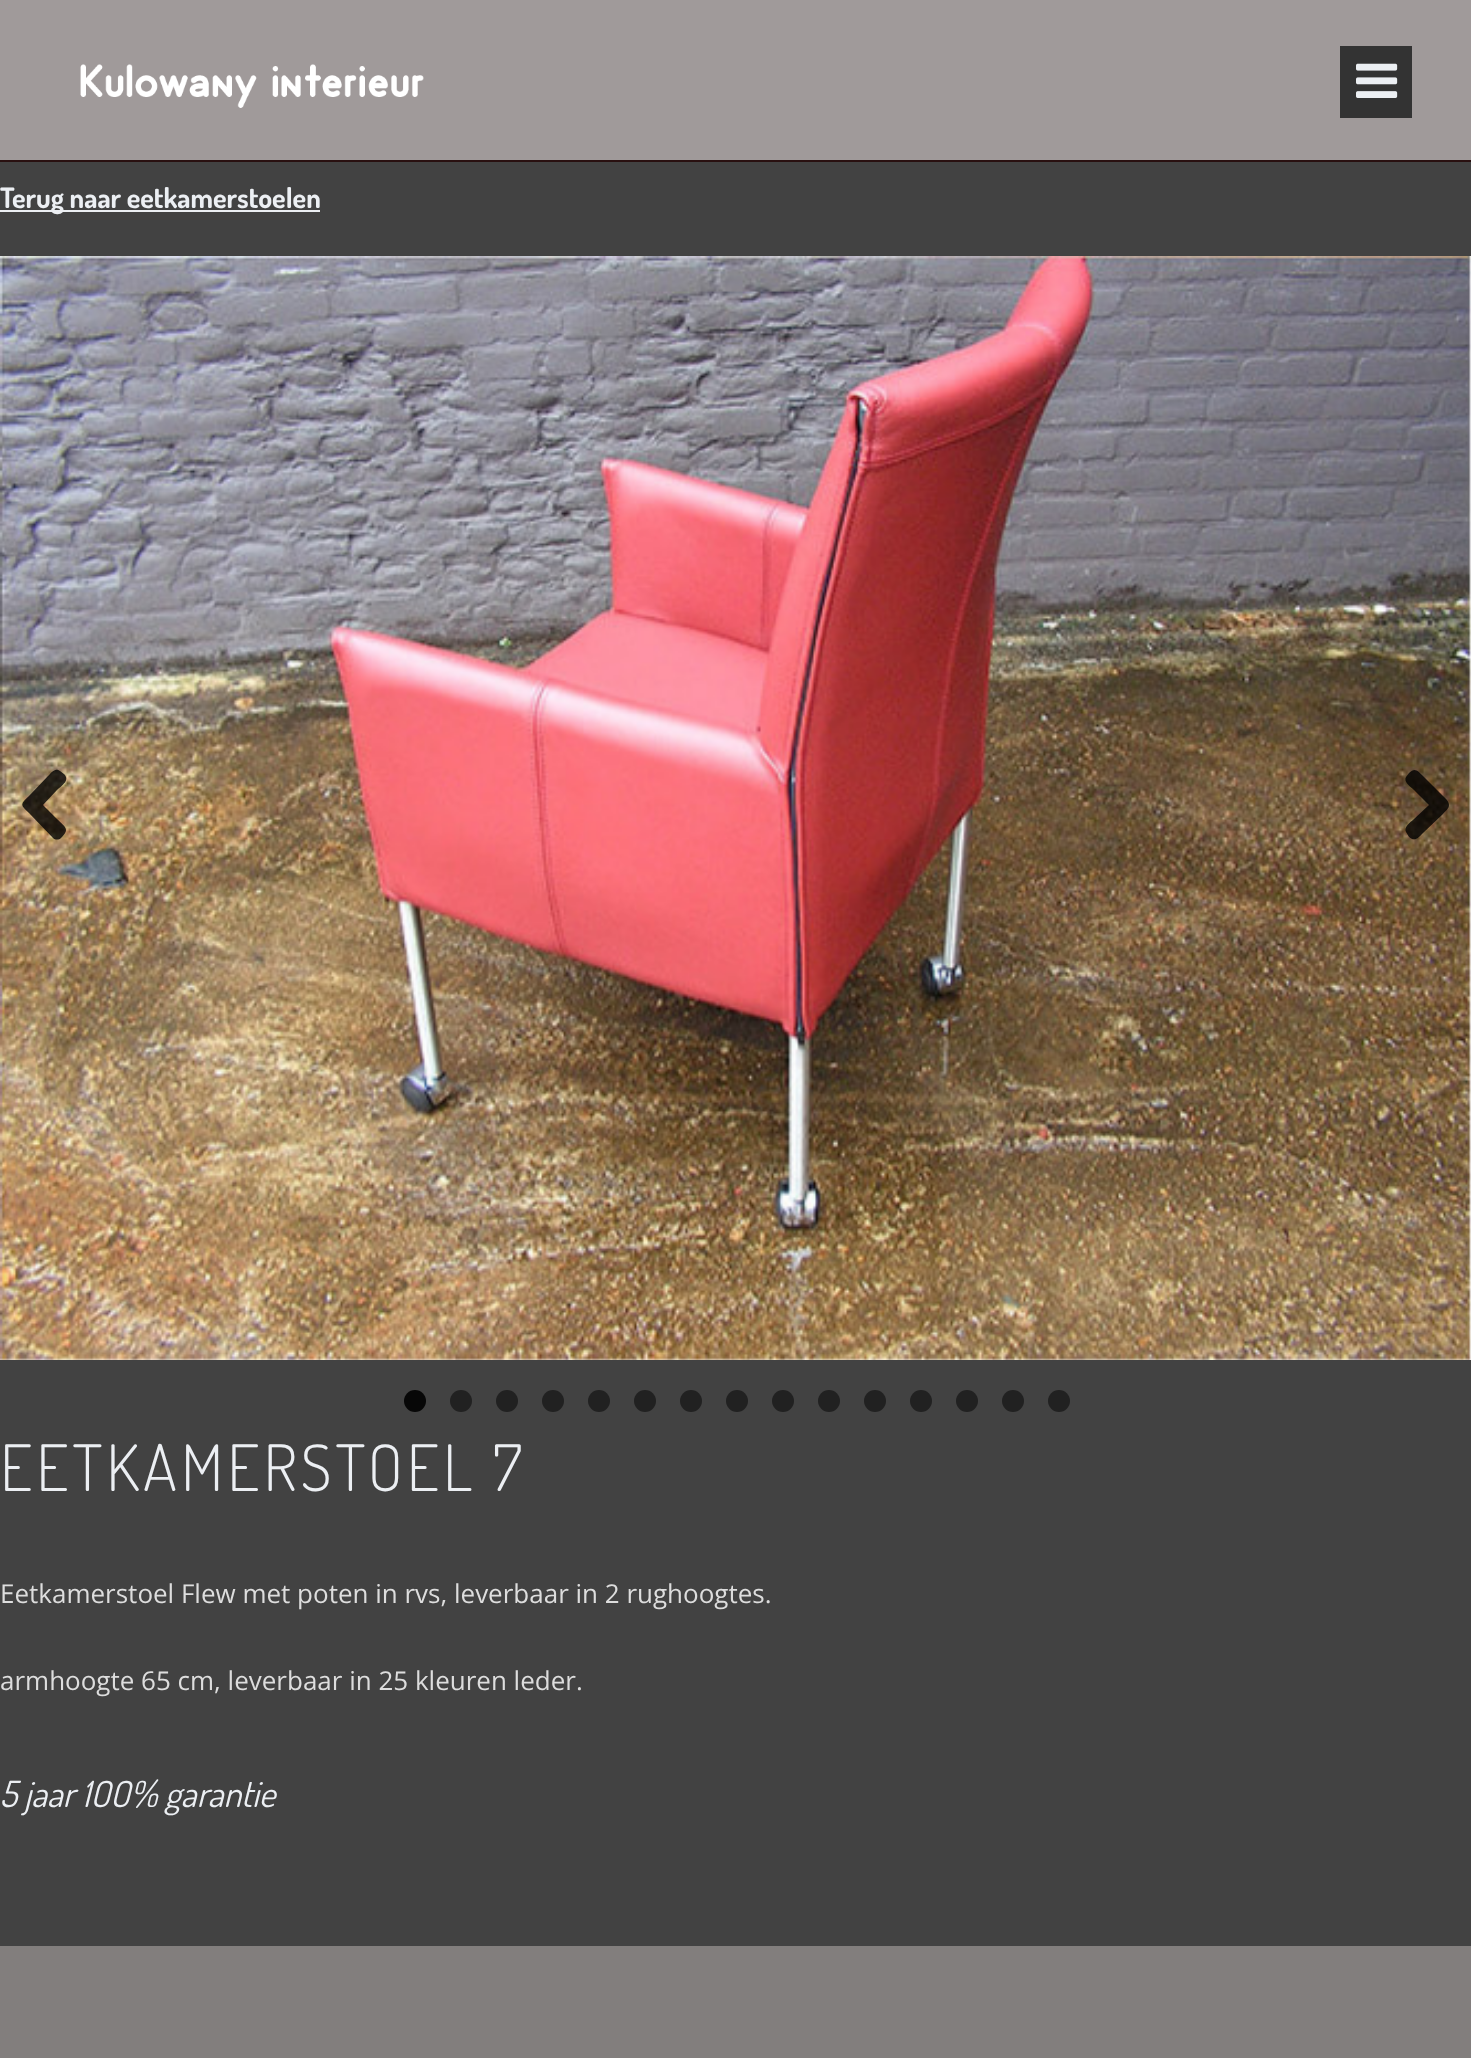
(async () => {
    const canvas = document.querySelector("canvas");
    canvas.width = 1471;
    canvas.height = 2058;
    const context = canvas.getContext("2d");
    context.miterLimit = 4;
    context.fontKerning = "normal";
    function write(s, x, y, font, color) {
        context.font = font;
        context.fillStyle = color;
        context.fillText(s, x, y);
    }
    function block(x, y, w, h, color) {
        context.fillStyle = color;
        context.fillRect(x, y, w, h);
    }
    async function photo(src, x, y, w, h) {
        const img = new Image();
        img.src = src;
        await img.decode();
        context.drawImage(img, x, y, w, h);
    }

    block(0, 0, 1471, 2058, "rgb(130, 126, 125)");
    block(0, 0, 1471, 160, "rgb(160, 154, 154)");
    block(0, 160, 1471, 2, "rgb(41, 16, 16)");
    await photo("media/1.png", 80, 64, 344, 44);
    block(1340, 46, 72, 72, "rgb(51, 51, 51)");
    await photo("media/2.png", 1356, 63, 42, 35);
    block(0, 162, 1471, 1784, "rgb(66, 66, 66)");
    block(0, 210, 320, 2, "rgb(236, 239, 243)");
    write("Terug naar eetkamerstoelen", 0, 208, "bold 28px Dosis", "rgb(236, 239, 243)");
    block(0, 1358, 1471, 2, "rgb(255, 255, 255)");
    await photo("media/3.png", 0, 256, 1471, 1104);
    context.fillStyle = "rgba(0, 0, 0, 0.8)";
    context.beginPath();
    context.moveTo(53, 838);
    context.lineTo(29, 813);
    context.bezierCurveTo(20, 805, 20, 804, 29, 796);
    context.lineTo(48, 776);
    context.bezierCurveTo(51, 773, 55, 767, 60, 771);
    context.lineTo(64, 774);
    context.bezierCurveTo(70, 780, 63, 785, 57, 790);
    context.lineTo(43, 805);
    context.lineTo(57, 819);
    context.bezierCurveTo(66, 828, 70, 829, 61, 838);
    context.bezierCurveTo(59, 840, 55, 840, 53, 838);
    context.closePath();
    context.fill();
    context.beginPath();
    context.moveTo(1449, 805);
    context.bezierCurveTo(1449, 809, 1445, 811, 1443, 814);
    context.lineTo(1423, 833);
    context.bezierCurveTo(1418, 838, 1415, 842, 1409, 837);
    context.lineTo(1406, 832);
    context.bezierCurveTo(1403, 827, 1411, 822, 1414, 819);
    context.lineTo(1429, 805);
    context.lineTo(1414, 790);
    context.bezierCurveTo(1411, 787, 1403, 782, 1406, 777);
    context.lineTo(1409, 773);
    context.bezierCurveTo(1415, 767, 1418, 771, 1423, 776);
    context.lineTo(1443, 796);
    context.bezierCurveTo(1445, 798, 1449, 801, 1449, 805);
    context.closePath();
    context.fill();
    context.fillStyle = "rgb(7, 7, 7)";
    context.beginPath();
    context.arc(415, 1401, 11, 0, Math.PI * 2);
    context.fill();
    context.fillStyle = "rgb(33, 33, 33)";
    context.beginPath();
    context.arc(461, 1401, 11, 0, Math.PI * 2);
    context.fill();
    context.beginPath();
    context.arc(507, 1401, 11, 0, Math.PI * 2);
    context.fill();
    context.beginPath();
    context.arc(553, 1401, 11, 0, Math.PI * 2);
    context.fill();
    context.beginPath();
    context.arc(599, 1401, 11, 0, Math.PI * 2);
    context.fill();
    context.beginPath();
    context.arc(645, 1401, 11, 0, Math.PI * 2);
    context.fill();
    context.beginPath();
    context.arc(691, 1401, 11, 0, Math.PI * 2);
    context.fill();
    context.beginPath();
    context.arc(737, 1401, 11, 0, Math.PI * 2);
    context.fill();
    context.beginPath();
    context.arc(783, 1401, 11, 0, Math.PI * 2);
    context.fill();
    context.beginPath();
    context.arc(829, 1401, 11, 0, Math.PI * 2);
    context.fill();
    context.beginPath();
    context.arc(875, 1401, 11, 0, Math.PI * 2);
    context.fill();
    context.beginPath();
    context.arc(921, 1401, 11, 0, Math.PI * 2);
    context.fill();
    context.beginPath();
    context.arc(967, 1401, 11, 0, Math.PI * 2);
    context.fill();
    context.beginPath();
    context.arc(1013, 1401, 11, 0, Math.PI * 2);
    context.fill();
    context.beginPath();
    context.arc(1059, 1401, 11, 0, Math.PI * 2);
    context.fill();
    context.letterSpacing = "4px";
    write("EETKAMERSTOEL 7", 0, 1491, "300 64px Dosis", "rgb(236, 239, 243)");
    context.letterSpacing = "0px";
    write("Eetkamerstoel Flew met poten in rvs, leverbaar in 2 rughoogtes.", 0, 1603, "26px Open Sans", "rgb(221, 221, 221)");
    write("armhoogte 65 cm, leverbaar in 25 kleuren leder.", 0, 1690, "26px Open Sans", "rgb(221, 221, 221)");
    write("5 jaar 1OO% garantie", 0, 1807, "italic 36px Dosis", "rgb(236, 239, 243)");
})();
